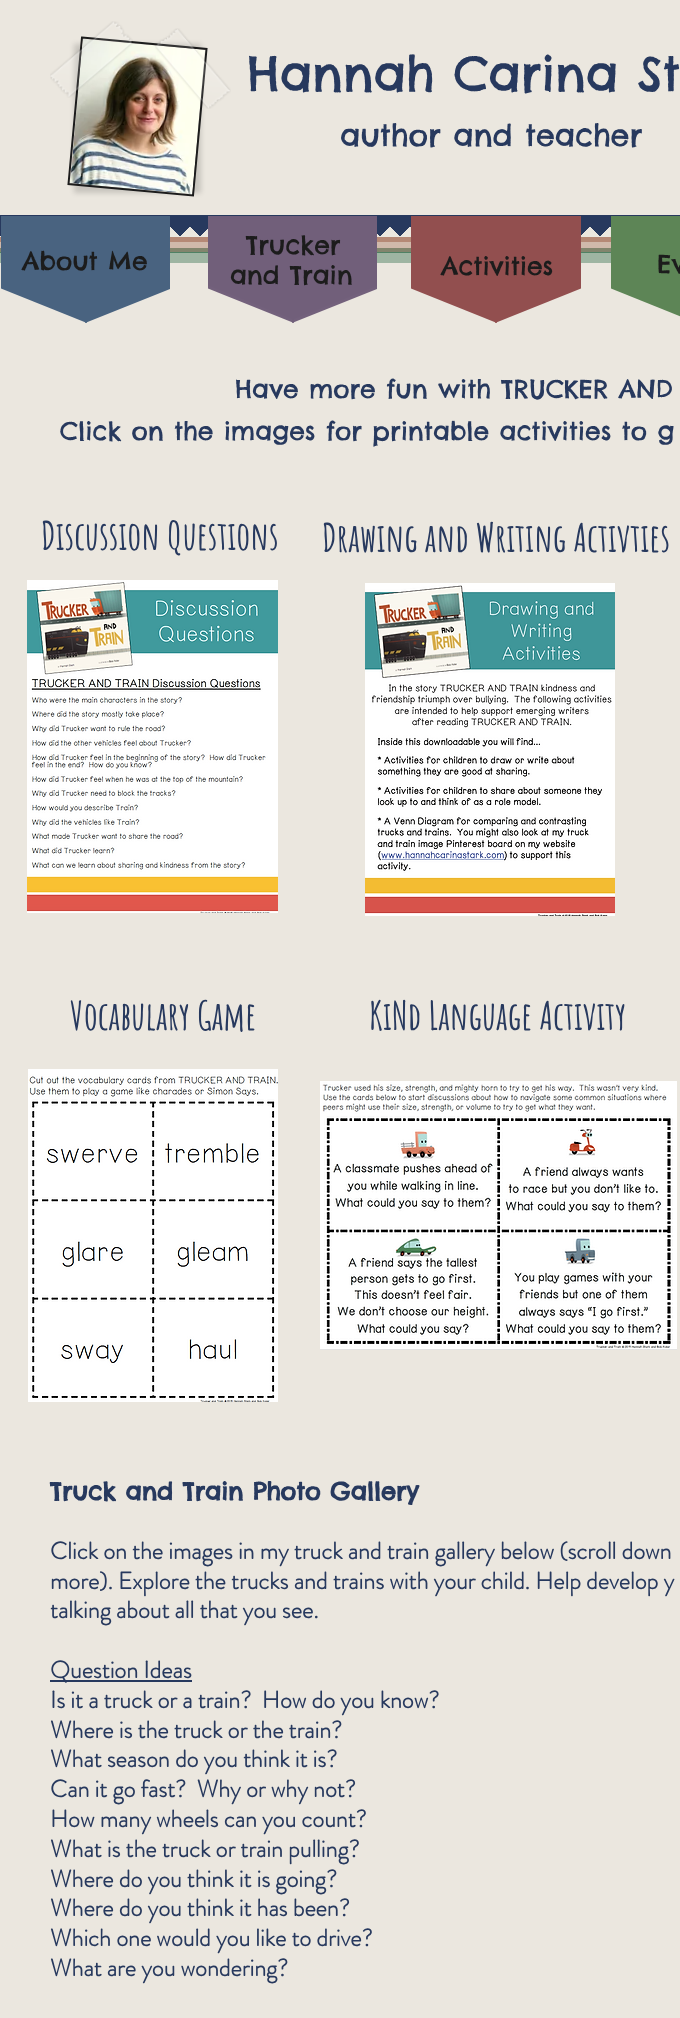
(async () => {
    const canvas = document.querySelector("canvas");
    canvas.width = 680;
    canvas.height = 2018;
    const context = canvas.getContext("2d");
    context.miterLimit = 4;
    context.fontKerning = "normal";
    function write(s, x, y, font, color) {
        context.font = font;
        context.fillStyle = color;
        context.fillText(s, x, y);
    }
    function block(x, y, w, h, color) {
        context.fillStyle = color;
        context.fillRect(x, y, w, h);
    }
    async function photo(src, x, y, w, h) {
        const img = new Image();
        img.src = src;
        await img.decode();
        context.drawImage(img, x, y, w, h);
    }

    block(0, 0, 680, 2018, "rgb(235, 231, 223)");
    context.fillStyle = "rgba(0, 0, 0, 0.15)";
    context.filter = "blur(2.5px)";
    context.beginPath();
    context.rect(74, 44, 127, 149);
    context.fill();
    context.filter = "none";
    context.beginPath();
    context.moveTo(82, 37.5);
    context.lineTo(206.5, 49);
    context.lineTo(193, 195.5);
    context.lineTo(68.5, 184);
    context.closePath();
    context.strokeStyle = "rgb(28, 28, 28)";
    context.lineWidth = 2;
    context.stroke();
    await photo("media/3.png", 70, 39, 135, 155);
    await photo("media/1.png", 50, 21, 83, 77);
    await photo("media/2.png", 155, 28, 76, 81);
    write("Hannah Carina St", 247, 91, "48px Chelsea Market", "rgb(39, 57, 94)");
    write("author and teacher", 340, 146, "30px Chelsea Market", "rgb(39, 57, 94)");
    block(0, 215, 680, 10, "rgb(39, 57, 94)");
    await photo("media/4.png", 0, 225, 610, 11);
    await photo("media/5.png", 170, 225, 441, 11);
    block(0, 237, 611, 5, "rgb(181, 137, 118)");
    block(0, 252, 611, 1, "rgb(79, 130, 100)");
    block(0, 248, 611, 4, "rgb(130, 133, 109)");
    block(0, 253, 611, 10, "rgb(158, 181, 162)");
    block(0, 242, 611, 6, "rgb(208, 185, 171)");
    context.save();
    context.beginPath();
    context.rect(1, 216, 169, 105);
    context.clip();
    context.fillStyle = "rgb(73, 99, 128)";
    context.beginPath();
    context.moveTo(85, 320);
    context.lineTo(85, 120);
    context.lineTo(585, 120);
    context.closePath();
    context.fill();
    context.beginPath();
    context.moveTo(87, 120);
    context.lineTo(87, 320);
    context.lineTo(-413, 120);
    context.closePath();
    context.fill();
    context.restore();
    context.save();
    context.beginPath();
    context.rect(208, 216, 169, 105);
    context.clip();
    context.fillStyle = "rgba(113, 95, 122, 0.99)";
    context.beginPath();
    context.moveTo(292, 320);
    context.lineTo(292, 120);
    context.lineTo(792, 120);
    context.closePath();
    context.fill();
    context.beginPath();
    context.moveTo(294, 120);
    context.lineTo(294, 320);
    context.lineTo(-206, 120);
    context.closePath();
    context.fill();
    context.restore();
    context.save();
    context.beginPath();
    context.rect(411, 216, 170, 105);
    context.clip();
    context.fillStyle = "rgb(146, 79, 79)";
    context.beginPath();
    context.moveTo(495, 320);
    context.lineTo(495, 120);
    context.lineTo(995, 120);
    context.closePath();
    context.fill();
    context.beginPath();
    context.moveTo(497, 120);
    context.lineTo(497, 320);
    context.lineTo(-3, 120);
    context.closePath();
    context.fill();
    context.restore();
    context.save();
    context.beginPath();
    context.rect(611, 216, 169, 105);
    context.clip();
    context.fillStyle = "rgb(93, 133, 86)";
    context.beginPath();
    context.moveTo(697, 120);
    context.lineTo(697, 320);
    context.lineTo(197, 120);
    context.closePath();
    context.fill();
    context.restore();
    context.save();
    context.beginPath();
    context.rect(208, 219, 169, 105);
    context.clip();
    context.fillStyle = "rgba(113, 95, 122, 0.99)";
    context.beginPath();
    context.moveTo(292, 323);
    context.lineTo(292, 123);
    context.lineTo(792, 123);
    context.closePath();
    context.fill();
    context.beginPath();
    context.moveTo(294, 123);
    context.lineTo(294, 323);
    context.lineTo(-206, 123);
    context.closePath();
    context.fill();
    context.restore();
    write("Trucker", 246, 254, "25px Chelsea Market", "rgb(28, 28, 28)");
    context.save();
    context.beginPath();
    context.rect(411, 219, 170, 105);
    context.clip();
    context.fillStyle = "rgb(146, 79, 79)";
    context.beginPath();
    context.moveTo(495, 323);
    context.lineTo(495, 123);
    context.lineTo(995, 123);
    context.closePath();
    context.fill();
    context.beginPath();
    context.moveTo(497, 123);
    context.lineTo(497, 323);
    context.lineTo(-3, 123);
    context.closePath();
    context.fill();
    context.restore();
    context.save();
    context.beginPath();
    context.rect(1, 219, 169, 105);
    context.clip();
    context.fillStyle = "rgb(73, 99, 128)";
    context.beginPath();
    context.moveTo(85, 323);
    context.lineTo(85, 123);
    context.lineTo(585, 123);
    context.closePath();
    context.fill();
    context.beginPath();
    context.moveTo(87, 123);
    context.lineTo(87, 323);
    context.lineTo(-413, 123);
    context.closePath();
    context.fill();
    context.restore();
    write("About Me", 22, 270, "25px Chelsea Market", "rgb(28, 28, 28)");
    write("and Train", 230, 284, "25px Chelsea Market", "rgb(28, 28, 28)");
    context.save();
    context.beginPath();
    context.rect(611, 219, 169, 105);
    context.clip();
    context.fillStyle = "rgb(93, 133, 86)";
    context.beginPath();
    context.moveTo(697, 123);
    context.lineTo(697, 323);
    context.lineTo(197, 123);
    context.closePath();
    context.fill();
    context.restore();
    write("Ev", 657, 273, "25px Chelsea Market", "rgb(28, 28, 28)");
    write("Have more fun with TRUCKER AND", 235, 398, "25px Chelsea Market", "rgb(39, 57, 94)");
    write("Click on the images for printable activities to g", 60, 440, "25px Chelsea Market", "rgb(39, 57, 94)");
    write("Discussion Questions", 41, 550, "bold 39px Amatic SC", "rgb(39, 57, 94)");
    write("Drawing and Writing Activties", 322, 552, "bold 39px Amatic SC", "rgb(39, 57, 94)");
    await photo("media/6.png", 27, 580, 251, 333);
    await photo("media/7.png", 365, 583, 250, 333);
    write("Vocabulary Game", 70, 1030, "bold 39px Amatic SC", "rgb(39, 57, 94)");
    write("KiNd Language Activity", 369, 1030, "bold 39px Amatic SC", "rgb(39, 57, 94)");
    await photo("media/8.png", 28, 1069, 250, 333);
    await photo("media/9.png", 320, 1081, 357, 269);
    write("Truck and Train Photo Gallery", 50, 1500, "bold 24px Chelsea Market", "rgb(39, 57, 94)");
    write("Click on the images in my truck and train gallery below (scroll down", 50, 1559, "bold 24px 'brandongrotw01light'", "rgb(39, 57, 94)");
    write("more). Explore the trucks and trains with your child. Help develop y", 50, 1589, "bold 24px 'brandongrotw01light'", "rgb(39, 57, 94)");
    write("talking about all that you see.", 50, 1618, "bold 24px 'brandongrotw01light'", "rgb(39, 57, 94)");
    block(50, 1680, 142, 2, "rgb(39, 57, 94)");
    write("Question Ideas", 50, 1678, "bold 24px 'brandongrotw01light'", "rgb(39, 57, 94)");
    write("Is it a truck or a train?  How do you know?", 50, 1708, "bold 24px 'brandongrotw01light'", "rgb(39, 57, 94)");
    write("Where is the truck or the train?", 50, 1738, "bold 24px 'brandongrotw01light'", "rgb(39, 57, 94)");
    write("What season do you think it is?", 50, 1767, "bold 24px 'brandongrotw01light'", "rgb(39, 57, 94)");
    write("Can it go fast?  Why or why not?", 50, 1797, "bold 24px 'brandongrotw01light'", "rgb(39, 57, 94)");
    write("How many wheels can you count?", 50, 1827, "bold 24px 'brandongrotw01light'", "rgb(39, 57, 94)");
    write("What is the truck or train pulling?", 50, 1857, "bold 24px 'brandongrotw01light'", "rgb(39, 57, 94)");
    write("Where do you think it is going?", 50, 1887, "bold 24px 'brandongrotw01light'", "rgb(39, 57, 94)");
    write("Where do you think it has been?", 50, 1916, "bold 24px 'brandongrotw01light'", "rgb(39, 57, 94)");
    write("Which one would you like to drive?", 50, 1946, "bold 24px 'brandongrotw01light'", "rgb(39, 57, 94)");
    write("What are you wondering?", 50, 1976, "bold 24px 'brandongrotw01light'", "rgb(39, 57, 94)");
    write("Activities", 441, 275, "25px Chelsea Market", "rgb(28, 28, 28)");
})();
